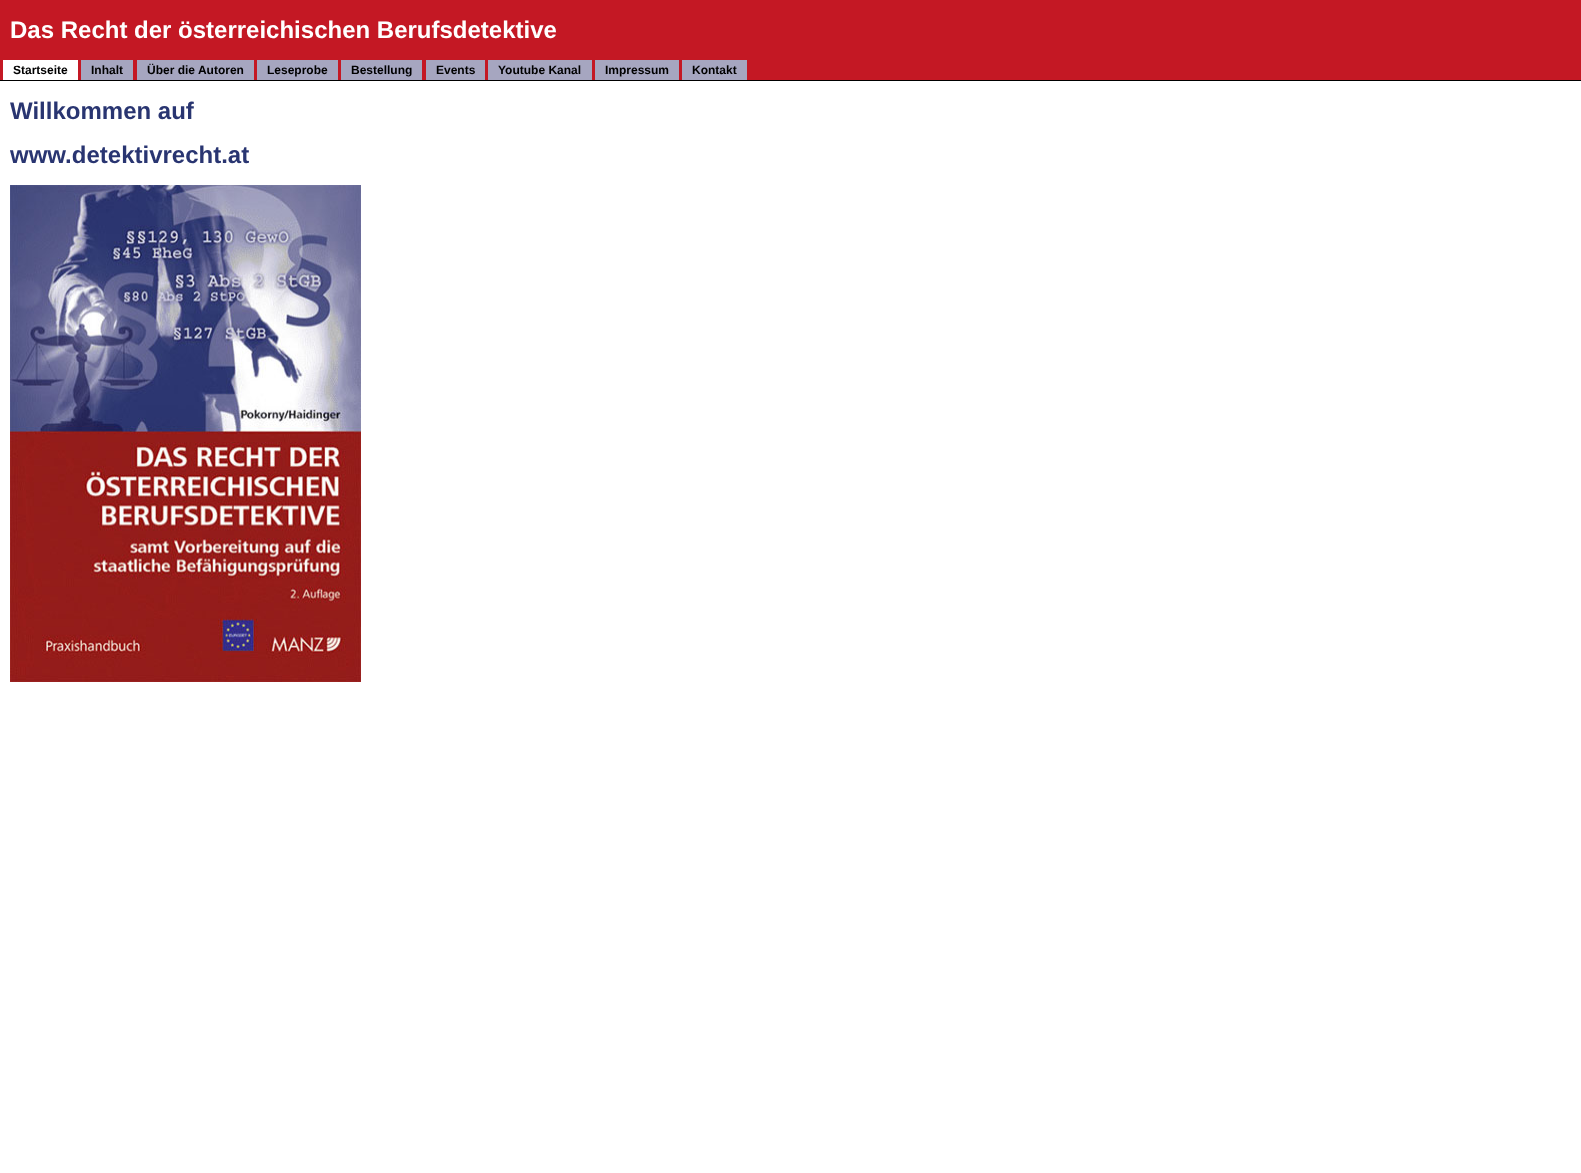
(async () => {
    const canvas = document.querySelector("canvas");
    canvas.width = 1581;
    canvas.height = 1173;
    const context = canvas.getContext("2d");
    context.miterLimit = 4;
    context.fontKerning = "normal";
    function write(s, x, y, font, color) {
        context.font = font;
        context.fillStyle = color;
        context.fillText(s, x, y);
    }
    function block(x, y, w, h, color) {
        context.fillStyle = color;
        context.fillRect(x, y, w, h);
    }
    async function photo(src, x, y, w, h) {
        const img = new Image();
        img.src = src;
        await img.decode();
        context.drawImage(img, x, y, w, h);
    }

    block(0, 0, 1581, 1173, "rgb(255, 255, 255)");
    block(0, 80, 1581, 1, "rgb(0, 0, 0)");
    block(0, 0, 1581, 80, "rgb(196, 24, 36)");
    write("Das Recht der österreichischen Berufsdetektive", 10, 38, "bold 24px Liberation Sans", "rgb(255, 255, 255)");
    block(3, 60, 75, 20, "rgb(255, 255, 255)");
    write("Startseite", 13, 74, "bold 12px Liberation Sans", "rgb(0, 0, 0)");
    block(81, 60, 52, 20, "rgb(166, 166, 192)");
    write("Inhalt", 91, 74, "bold 12px Liberation Sans", "rgb(0, 0, 0)");
    block(137, 60, 117, 20, "rgb(166, 166, 192)");
    write("Über die Autoren", 147, 74, "bold 12px Liberation Sans", "rgb(0, 0, 0)");
    block(257, 60, 81, 20, "rgb(166, 166, 192)");
    write("Leseprobe", 267, 74, "bold 12px Liberation Sans", "rgb(0, 0, 0)");
    block(341, 60, 81, 20, "rgb(166, 166, 192)");
    write("Bestellung", 351, 74, "bold 12px Liberation Sans", "rgb(0, 0, 0)");
    block(426, 60, 59, 20, "rgb(166, 166, 192)");
    write("Events", 436, 74, "bold 12px Liberation Sans", "rgb(0, 0, 0)");
    block(488, 60, 104, 20, "rgb(166, 166, 192)");
    write("Youtube Kanal", 498, 74, "bold 12px Liberation Sans", "rgb(0, 0, 0)");
    block(595, 60, 84, 20, "rgb(166, 166, 192)");
    write("Impressum", 605, 74, "bold 12px Liberation Sans", "rgb(0, 0, 0)");
    block(682, 60, 65, 20, "rgb(166, 166, 192)");
    write("Kontakt", 692, 74, "bold 12px Liberation Sans", "rgb(0, 0, 0)");
    write("Willkommen auf", 10, 119, "bold 24px Liberation Sans", "rgb(41, 53, 113)");
    write("www.detektivrecht.at", 10, 163, "bold 24px Liberation Sans", "rgb(41, 53, 113)");
    await photo("media/1.png", 10, 185, 351, 497);
})();
